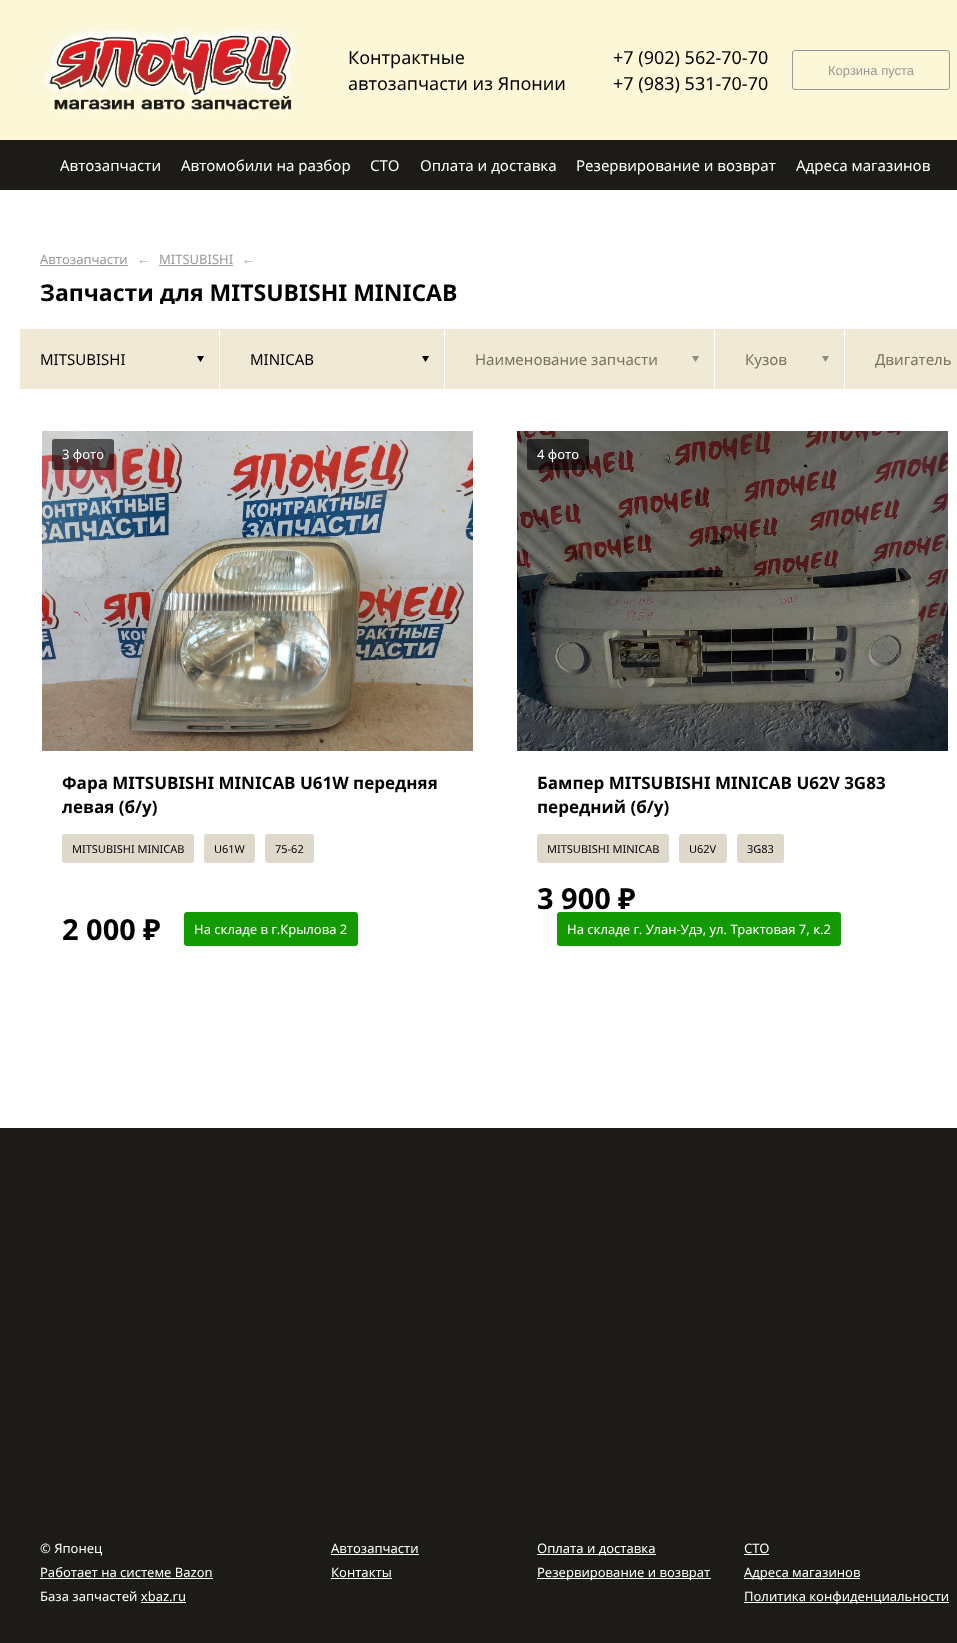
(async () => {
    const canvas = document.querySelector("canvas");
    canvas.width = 957;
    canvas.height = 1643;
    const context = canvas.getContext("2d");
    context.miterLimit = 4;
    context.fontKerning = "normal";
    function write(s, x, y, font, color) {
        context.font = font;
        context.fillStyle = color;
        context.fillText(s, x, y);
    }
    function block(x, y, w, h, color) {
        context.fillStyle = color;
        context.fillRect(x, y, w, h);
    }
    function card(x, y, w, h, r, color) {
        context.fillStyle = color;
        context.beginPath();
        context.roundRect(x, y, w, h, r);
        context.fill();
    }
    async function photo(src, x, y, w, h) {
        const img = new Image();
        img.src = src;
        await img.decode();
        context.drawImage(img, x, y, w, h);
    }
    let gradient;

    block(0, 0, 957, 1643, "rgb(28, 27, 23)");
    block(0, 0, 957, 140, "rgb(251, 247, 215)");
    await photo("media/1.png", 41, 27, 257, 86);
    write("Контрактные", 348, 64, "18px Noto Sans", "rgb(0, 0, 0)");
    write("автозапчасти из Японии", 348, 90, "18px Noto Sans", "rgb(0, 0, 0)");
    write("+7 (902) 562-70-70", 613, 64, "18px Noto Sans", "rgb(0, 0, 0)");
    write("+7 (983) 531-70-70", 613, 90, "18px Noto Sans", "rgb(0, 0, 0)");
    context.beginPath();
    context.roundRect(792.5, 50.5, 157, 39, 2.5);
    context.strokeStyle = "rgb(153, 153, 153)";
    context.stroke();
    write("Корзина пуста", 828, 75, "13px Liberation Sans", "rgb(153, 153, 153)");
    write("Автозапчасти", 60, 171, "15px Noto Sans", "rgb(255, 255, 255)");
    write("Автомобили на разбор", 181, 171, "15px Noto Sans", "rgb(255, 255, 255)");
    write("СТО", 370, 171, "15px Noto Sans", "rgb(255, 255, 255)");
    write("Оплата и доставка", 420, 171, "15px Noto Sans", "rgb(255, 255, 255)");
    write("Резервирование и возврат", 576, 171, "15px Noto Sans", "rgb(255, 255, 255)");
    write("Адреса магазинов", 796, 171, "15px Noto Sans", "rgb(255, 255, 255)");
    block(0, 190, 957, 938, "rgb(255, 255, 255)");
    write("Автозапчасти", 40, 264, "13px Noto Sans", "rgb(153, 153, 153)");
    block(40, 265, 88, 1, "rgb(153, 153, 153)");
    write("←", 137, 264, "13px Noto Sans", "rgb(153, 153, 153)");
    write("MITSUBISHI", 159, 264, "13px Noto Sans", "rgb(153, 153, 153)");
    block(159, 265, 74, 1, "rgb(153, 153, 153)");
    write("←", 242, 264, "13px Noto Sans", "rgb(153, 153, 153)");
    context.save();
    context.beginPath();
    context.rect(40, 266, 910, 38);
    context.clip();
    write("Запчасти для MITSUBISHI MINICAB", 40, 301, "bold 23px Noto Sans", "rgb(0, 0, 0)");
    context.restore();
    block(20, 329, 199, 60, "rgb(239, 233, 213)");
    write("MITSUBISHI", 40, 365, "15px Noto Sans", "rgb(0, 0, 0)");
    await photo("media/2.png", 197, 356, 7, 6);
    block(220, 329, 224, 60, "rgb(239, 233, 213)");
    write("MINICAB", 250, 365, "15px Noto Sans", "rgb(0, 0, 0)");
    await photo("media/2.png", 422, 356, 7, 6);
    block(445, 329, 269, 60, "rgb(239, 233, 213)");
    write("Наименование запчасти", 475, 365, "15px Noto Sans", "rgb(121, 114, 93)");
    await photo("media/3.png", 692, 356, 7, 6);
    block(715, 329, 129, 60, "rgb(239, 233, 213)");
    write("Кузов", 745, 365, "15px Noto Sans", "rgb(121, 114, 93)");
    await photo("media/3.png", 822, 356, 7, 6);
    block(845, 329, 112, 60, "rgb(239, 233, 213)");
    write("Двигатель", 875, 365, "15px Noto Sans", "rgb(121, 114, 93)");
    gradient = context.createLinearGradient(949, 359, 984, 359);
    gradient.addColorStop(0, "rgba(239, 233, 213, 0)");
    gradient.addColorStop(1, "rgb(239, 233, 213)");
    context.fillStyle = gradient;
    context.fillRect(950, 361, 1, 3);
    await photo("media/4.png", 42, 431, 431, 320);
    card(52, 439, 62, 31, 3, "rgba(0, 0, 0, 0.6)");
    write("3 фото", 62, 459, "13px Noto Sans", "rgb(255, 255, 255)");
    write("Фара MITSUBISHI MINICAB U61W передняя", 62, 789, "bold 17px Noto Sans", "rgb(0, 0, 0)");
    write("левая (б/у)", 62, 813, "bold 17px Noto Sans", "rgb(0, 0, 0)");
    card(62, 834, 132, 29, 3, "rgb(223, 217, 204)");
    write("MITSUBISHI MINICAB", 72, 853, "11px Noto Sans", "rgb(0, 0, 0)");
    card(204, 834, 51, 29, 3, "rgb(223, 217, 204)");
    write("U61W", 214, 853, "11px Noto Sans", "rgb(0, 0, 0)");
    card(265, 834, 49, 29, 3, "rgb(223, 217, 204)");
    write("75-62", 275, 853, "11px Noto Sans", "rgb(0, 0, 0)");
    write("2 000", 62, 940, "bold 29px Noto Sans", "rgb(0, 0, 0)");
    write("₽", 143, 940, "bold 29px 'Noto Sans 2'", "rgb(0, 0, 0)");
    card(184, 912, 174, 34, 3, "rgb(19, 153, 1)");
    write("На складе в г.Крылова 2", 194, 934, "13px Noto Sans", "rgb(255, 255, 255)");
    await photo("media/5.png", 517, 431, 431, 320);
    card(527, 439, 62, 31, 3, "rgba(0, 0, 0, 0.6)");
    write("4 фото", 537, 459, "13px Noto Sans", "rgb(255, 255, 255)");
    write("Бампер MITSUBISHI MINICAB U62V 3G83", 537, 789, "bold 17px Noto Sans", "rgb(0, 0, 0)");
    write("передний (б/у)", 537, 813, "bold 17px Noto Sans", "rgb(0, 0, 0)");
    card(537, 834, 132, 29, 3, "rgb(223, 217, 204)");
    write("MITSUBISHI MINICAB", 547, 853, "11px Noto Sans", "rgb(0, 0, 0)");
    card(679, 834, 48, 29, 3, "rgb(223, 217, 204)");
    write("U62V", 689, 853, "11px Noto Sans", "rgb(0, 0, 0)");
    card(737, 834, 47, 29, 3, "rgb(223, 217, 204)");
    write("3G83", 747, 853, "11px Noto Sans", "rgb(0, 0, 0)");
    write("3 900", 537, 909, "bold 29px Noto Sans", "rgb(0, 0, 0)");
    write("₽", 618, 909, "bold 29px 'Noto Sans 2'", "rgb(0, 0, 0)");
    card(557, 912, 284, 34, 3, "rgb(19, 153, 1)");
    write("На складе г. Улан-Удэ, ул. Трактовая 7, к.2", 567, 934, "13px Noto Sans", "rgb(255, 255, 255)");
    write("© Японец", 40, 1553, "13px Noto Sans", "rgb(255, 255, 255)");
    write("Работает на системе Bazon", 40, 1577, "13px Noto Sans", "rgb(255, 255, 255)");
    block(40, 1578, 173, 1, "rgb(255, 255, 255)");
    write("База запчастей xbaz.ru", 40, 1601, "13px Noto Sans", "rgb(255, 255, 255)");
    block(141, 1602, 45, 1, "rgb(255, 255, 255)");
    write("Автозапчасти", 331, 1553, "13px Noto Sans", "rgb(255, 255, 255)");
    block(331, 1554, 88, 1, "rgb(255, 255, 255)");
    write("Контакты", 331, 1577, "13px Noto Sans", "rgb(255, 255, 255)");
    block(331, 1578, 61, 1, "rgb(255, 255, 255)");
    block(537, 1554, 119, 1, "rgb(255, 255, 255)");
    write("Оплата и доставка", 537, 1553, "13px Noto Sans", "rgb(255, 255, 255)");
    block(537, 1578, 174, 1, "rgb(255, 255, 255)");
    write("Резервирование и возврат", 537, 1577, "13px Noto Sans", "rgb(255, 255, 255)");
    write("СТО", 744, 1553, "13px Noto Sans", "rgb(255, 255, 255)");
    block(744, 1554, 25, 1, "rgb(255, 255, 255)");
    block(744, 1578, 116, 1, "rgb(255, 255, 255)");
    write("Адреса магазинов", 744, 1577, "13px Noto Sans", "rgb(255, 255, 255)");
    block(744, 1602, 205, 1, "rgb(255, 255, 255)");
    write("Политика конфиденциальности", 744, 1601, "13px Noto Sans", "rgb(255, 255, 255)");
})();
